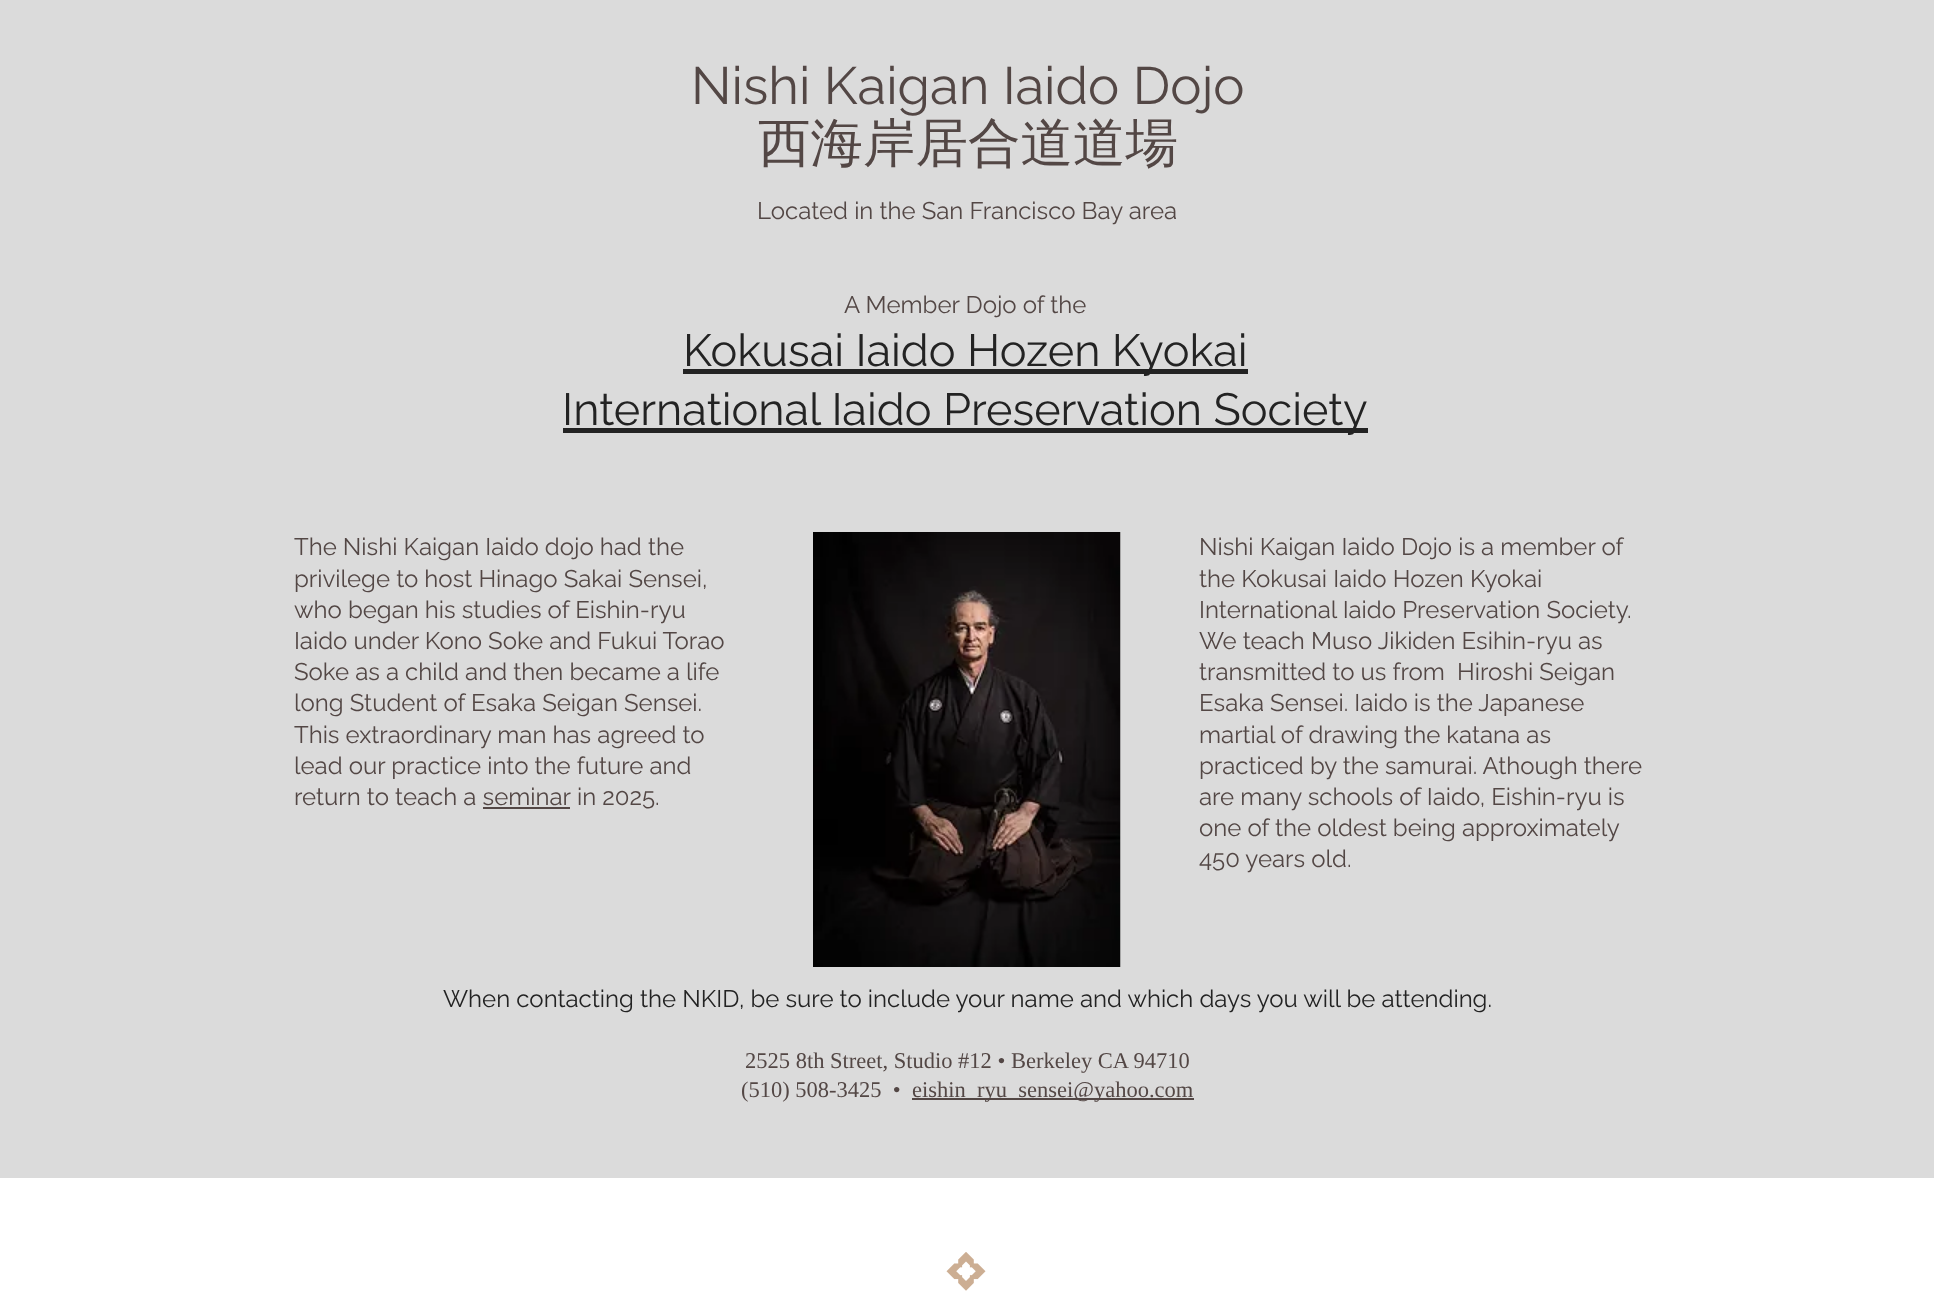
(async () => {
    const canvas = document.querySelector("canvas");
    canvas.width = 1934;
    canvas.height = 1309;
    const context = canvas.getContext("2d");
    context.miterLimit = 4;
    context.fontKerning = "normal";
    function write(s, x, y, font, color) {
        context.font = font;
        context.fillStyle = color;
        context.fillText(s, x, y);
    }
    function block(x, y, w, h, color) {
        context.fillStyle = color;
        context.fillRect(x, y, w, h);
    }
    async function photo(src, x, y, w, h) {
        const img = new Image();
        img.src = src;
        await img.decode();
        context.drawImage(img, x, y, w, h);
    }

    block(0, 0, 1934, 1309, "rgb(219, 219, 219)");
    write("Nishi Kaigan Iaido Dojo", 691, 104, "52.5px Raleway", "rgb(83, 71, 69)");
    write("西海岸居合道道場", 758, 161, "500 52.5px WenQuanYi Zen Hei", "rgb(83, 71, 69)");
    write("Located in the San Francisco Bay area", 757, 219, "24px Raleway", "rgb(83, 71, 69)");
    write("A Member Dojo of the", 844, 313, "24px Raleway", "rgb(83, 71, 69)");
    block(683, 369, 565, 5, "rgb(35, 35, 35)");
    write("Kokusai Iaido Hozen Kyokai", 683, 366, "45px Raleway", "rgb(35, 35, 35)");
    block(563, 428, 805, 5, "rgb(35, 35, 35)");
    write("International Iaido Preservation Society", 562, 425, "45px Raleway", "rgb(35, 35, 35)");
    write("The Nishi Kaigan Iaido dojo had the", 294, 555, "24px Raleway", "rgb(83, 71, 69)");
    write("privilege to host Hinago Sakai Sensei,", 294, 587, "24px Raleway", "rgb(83, 71, 69)");
    write("who began his studies of Eishin-ryu", 294, 618, "24px Raleway", "rgb(83, 71, 69)");
    write("Iaido under Kono Soke and Fukui Torao", 294, 649, "24px Raleway", "rgb(83, 71, 69)");
    write("Soke as a child and then became a life", 294, 680, "24px Raleway", "rgb(83, 71, 69)");
    write("long Student of Esaka Seigan Sensei.", 294, 711, "24px Raleway", "rgb(83, 71, 69)");
    write("This extraordinary man has agreed to", 294, 743, "24px Raleway", "rgb(83, 71, 69)");
    write("lead our practice into the future and", 294, 774, "24px Raleway", "rgb(83, 71, 69)");
    write("return to teach a seminar", 294, 805, "24px Raleway", "rgb(83, 71, 69)");
    write("in 2025.", 577, 805, "24px Raleway", "rgb(83, 71, 69)");
    block(483, 807, 87, 2, "rgb(83, 71, 69)");
    await photo("media/1.png", 813, 532, 308, 435);
    write("Nishi Kaigan Iaido Dojo is a member of", 1199, 555, "24px Raleway", "rgb(83, 71, 69)");
    write("the Kokusai Iaido Hozen Kyokai", 1199, 587, "24px Raleway", "rgb(83, 71, 69)");
    write("International Iaido Preservation Society.", 1199, 618, "24px Raleway", "rgb(83, 71, 69)");
    write("We teach Muso Jikiden Esihin-ryu as", 1199, 649, "24px Raleway", "rgb(83, 71, 69)");
    write("transmitted to us from  Hiroshi Seigan", 1199, 680, "24px Raleway", "rgb(83, 71, 69)");
    write("Esaka Sensei. Iaido is the Japanese", 1199, 711, "24px Raleway", "rgb(83, 71, 69)");
    write("martial of drawing the katana as", 1199, 743, "24px Raleway", "rgb(83, 71, 69)");
    write("practiced by the samurai. Athough there", 1199, 774, "24px Raleway", "rgb(83, 71, 69)");
    write("are many schools of Iaido, Eishin-ryu is", 1199, 805, "24px Raleway", "rgb(83, 71, 69)");
    write("one of the oldest being approximately", 1199, 836, "24px Raleway", "rgb(83, 71, 69)");
    write("450 years old.", 1199, 867, "24px Raleway", "rgb(83, 71, 69)");
    write("When contacting the NKID, be sure to include your name and which days you will be attending.", 443, 1007, "24px Raleway", "rgb(35, 35, 35)");
    write("2525 8th Street, Studio #12 • Berkeley CA 94710", 745, 1068, "22.5px Liberation Serif", "rgb(83, 71, 69)");
    write("(510) 508-3425  •", 741, 1097, "22.5px Liberation Serif", "rgb(83, 71, 69)");
    block(912, 1098, 282, 2, "rgb(83, 71, 69)");
    write("eishin_ryu_sensei@yahoo.com", 912, 1097, "22.5px Liberation Serif", "rgb(83, 71, 69)");
    block(0, 1178, 1934, 131, "rgb(255, 255, 255)");
    await photo("media/2.png", 946, 1252, 40, 39);
})();
